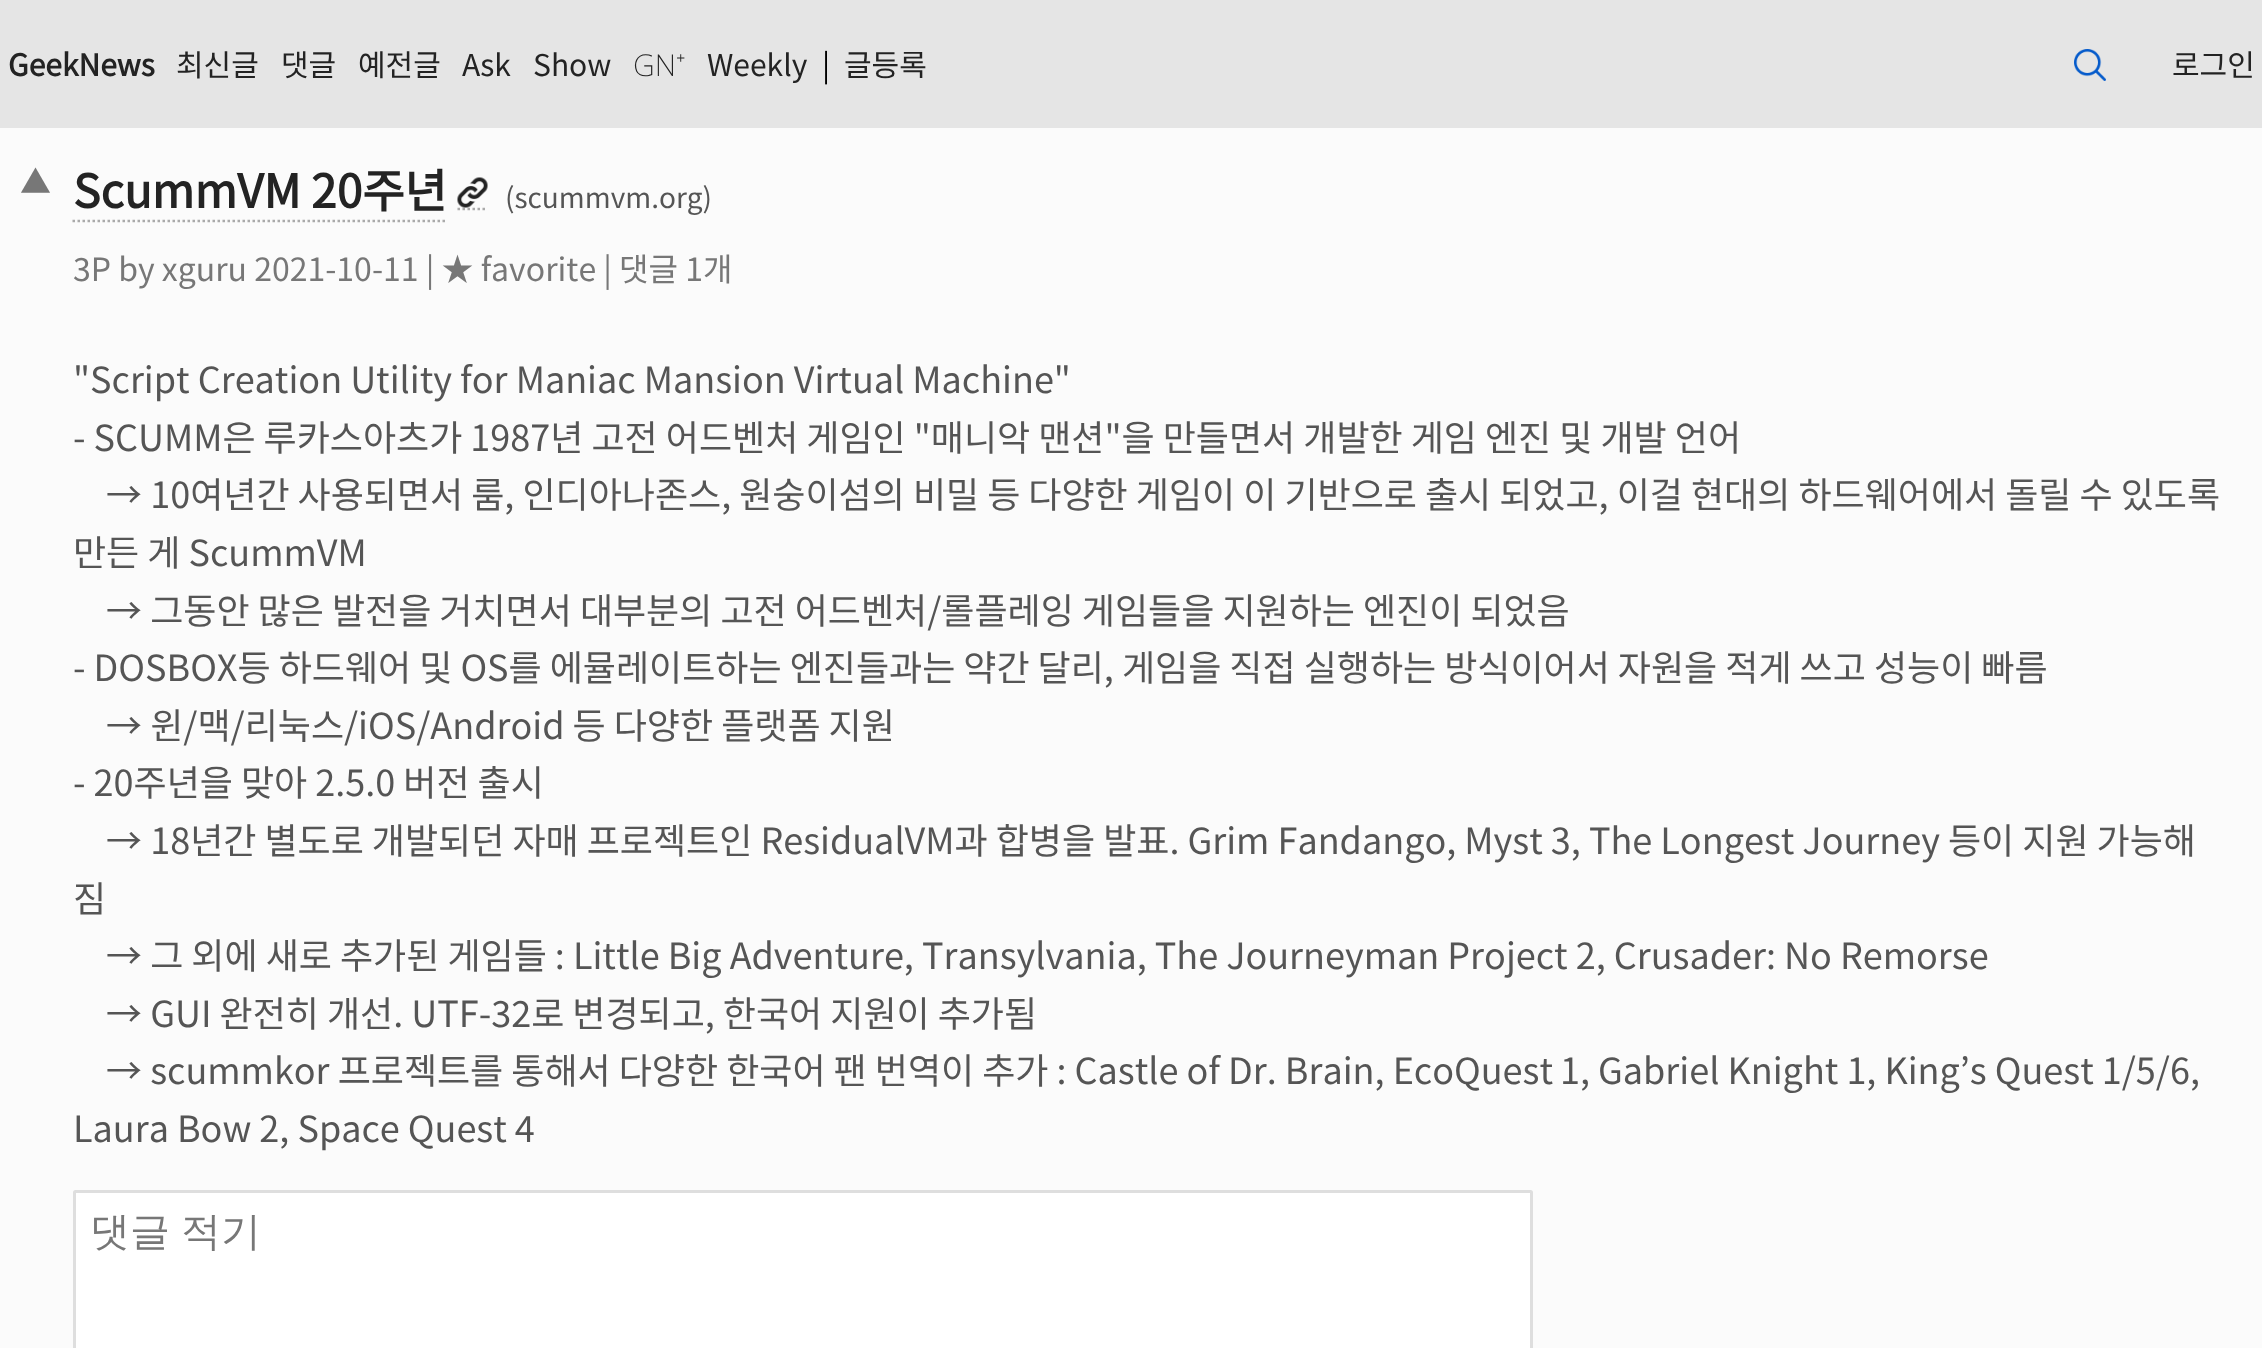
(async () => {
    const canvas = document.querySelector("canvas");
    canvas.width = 2262;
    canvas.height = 1348;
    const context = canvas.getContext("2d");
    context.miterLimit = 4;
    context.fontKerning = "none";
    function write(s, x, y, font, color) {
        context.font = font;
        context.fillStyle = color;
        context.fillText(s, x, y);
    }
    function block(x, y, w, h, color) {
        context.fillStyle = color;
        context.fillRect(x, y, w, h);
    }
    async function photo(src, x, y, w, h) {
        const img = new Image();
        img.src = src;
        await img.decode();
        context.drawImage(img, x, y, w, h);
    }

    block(0, 0, 2262, 1348, "rgb(251, 251, 251)");
    block(0, 0, 2262, 128, "rgb(229, 229, 229)");
    write("GeekNews", 8, 76, "bold 30px Noto Sans KR", "rgb(35, 35, 35)");
    write("최신글", 176, 76, "100 30px Noto Sans KR", "rgb(35, 35, 35)");
    write("댓글", 281, 76, "100 30px Noto Sans KR", "rgb(35, 35, 35)");
    write("예전글", 358, 76, "100 30px Noto Sans KR", "rgb(35, 35, 35)");
    write("Ask", 462, 76, "100 30px Noto Sans KR", "rgb(35, 35, 35)");
    write("Show", 533, 76, "100 30px Noto Sans KR", "rgb(35, 35, 35)");
    write("GN⁺", 633, 76, "200 30px Noto Sans", "rgb(35, 35, 35)");
    write("Weekly", 707, 76, "100 30px Noto Sans KR", "rgb(35, 35, 35)");
    write("|", 822, 76, "100 30px Noto Sans KR", "rgb(0, 0, 0)");
    write("글등록", 844, 76, "100 30px Noto Sans KR", "rgb(35, 35, 35)");
    await photo("media/1.png", 2074, 49, 32, 32);
    write("로그인", 2172, 76, "100 30px Noto Sans KR", "rgb(35, 35, 35)");
    write("▲", 20, 193, "100 31px Noto Sans KR", "rgb(119, 119, 119)");
    context.beginPath();
    context.moveTo(72.5, 221);
    context.lineTo(445, 221);
    context.strokeStyle = "rgb(170, 170, 170)";
    context.lineWidth = 2.5;
    context.setLineDash([2.5, 2.5]);
    context.stroke();
    context.beginPath();
    context.moveTo(457.5, 209);
    context.lineTo(487.5, 209);
    context.stroke();
    write("ScummVM 20주년", 73, 208, "bold 46px Noto Sans KR", "rgb(35, 35, 35)");
    await photo("media/2.png", 457, 177, 31, 31);
    write("(scummvm.org)", 505, 208, "100 28px Noto Sans KR", "rgb(85, 85, 85)");
    write("3P by xguru 2021-10-11 | ★ favorite | 댓글 1개", 73, 281, "100 32px Noto Sans KR", "rgb(119, 119, 119)");
    write("\"Script Creation Utility for Maniac Mansion Virtual Machine\"", 73, 393, "100 36px Noto Sans KR", "rgb(85, 85, 85)");
    write("- SCUMM은 루카스아츠가 1987년 고전 어드벤처 게임인 \"매니악 맨션\"을 만들면서 개발한 게임 엔진 및 개발 언어", 73, 451, "100 36px Noto Sans KR", "rgb(85, 85, 85)");
    write("ㅤ→ 10여년간 사용되면서 룸, 인디아나존스, 원숭이섬의 비밀 등 다양한 게임이 이 기반으로 출시 되었고, 이걸 현대의 하드웨어에서 돌릴 수 있도록", 73, 508, "100 36px Noto Sans KR", "rgb(85, 85, 85)");
    write("만든 게 ScummVM", 73, 566, "100 36px Noto Sans KR", "rgb(85, 85, 85)");
    write("ㅤ→ 그동안 많은 발전을 거치면서 대부분의 고전 어드벤처/롤플레잉 게임들을 지원하는 엔진이 되었음", 73, 624, "100 36px Noto Sans KR", "rgb(85, 85, 85)");
    write("- DOSBOX등 하드웨어 및 OS를 에뮬레이트하는 엔진들과는 약간 달리, 게임을 직접 실행하는 방식이어서 자원을 적게 쓰고 성능이 빠름", 73, 681, "100 36px Noto Sans KR", "rgb(85, 85, 85)");
    write("ㅤ→ 윈/맥/리눅스/iOS/Android 등 다양한 플랫폼 지원", 73, 739, "100 36px Noto Sans KR", "rgb(85, 85, 85)");
    write("- 20주년을 맞아 2.5.0 버전 출시", 73, 796, "100 36px Noto Sans KR", "rgb(85, 85, 85)");
    write("ㅤ→ 18년간 별도로 개발되던 자매 프로젝트인 ResidualVM과 합병을 발표. Grim Fandango, Myst 3, The Longest Journey 등이 지원 가능해", 73, 854, "100 36px Noto Sans KR", "rgb(85, 85, 85)");
    write("짐", 73, 912, "100 36px Noto Sans KR", "rgb(85, 85, 85)");
    write("ㅤ→ 그 외에 새로 추가된 게임들 : Little Big Adventure, Transylvania, The Journeyman Project 2, Crusader: No Remorse", 73, 969, "100 36px Noto Sans KR", "rgb(85, 85, 85)");
    write("ㅤ→ GUI 완전히 개선. UTF-32로 변경되고, 한국어 지원이 추가됨", 73, 1027, "100 36px Noto Sans KR", "rgb(85, 85, 85)");
    write("ㅤ→ scummkor 프로젝트를 통해서 다양한 한국어 팬 번역이 추가 : Castle of Dr. Brain, EcoQuest", 73, 1084, "100 36px Noto Sans KR", "rgb(85, 85, 85)");
    write("1, Gabriel Knight 1, King’s Quest 1/5/6,", 1560, 1084, "100 36px Noto Sans KR", "rgb(85, 85, 85)");
    write("Laura Bow 2, Space Quest 4", 73, 1142, "100 36px Noto Sans KR", "rgb(85, 85, 85)");
    context.fillStyle = "rgb(255, 255, 255)";
    context.beginPath();
    context.roundRect(74.5, 1191.5, 1457, 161, 1);
    context.fill();
    context.strokeStyle = "rgb(222, 222, 222)";
    context.lineWidth = 3;
    context.setLineDash([]);
    context.stroke();
    context.wordSpacing = "-1px";
    write("댓글 적기", 90, 1245, "500 40px WenQuanYi Zen Hei", "rgb(119, 119, 119)");
})();
